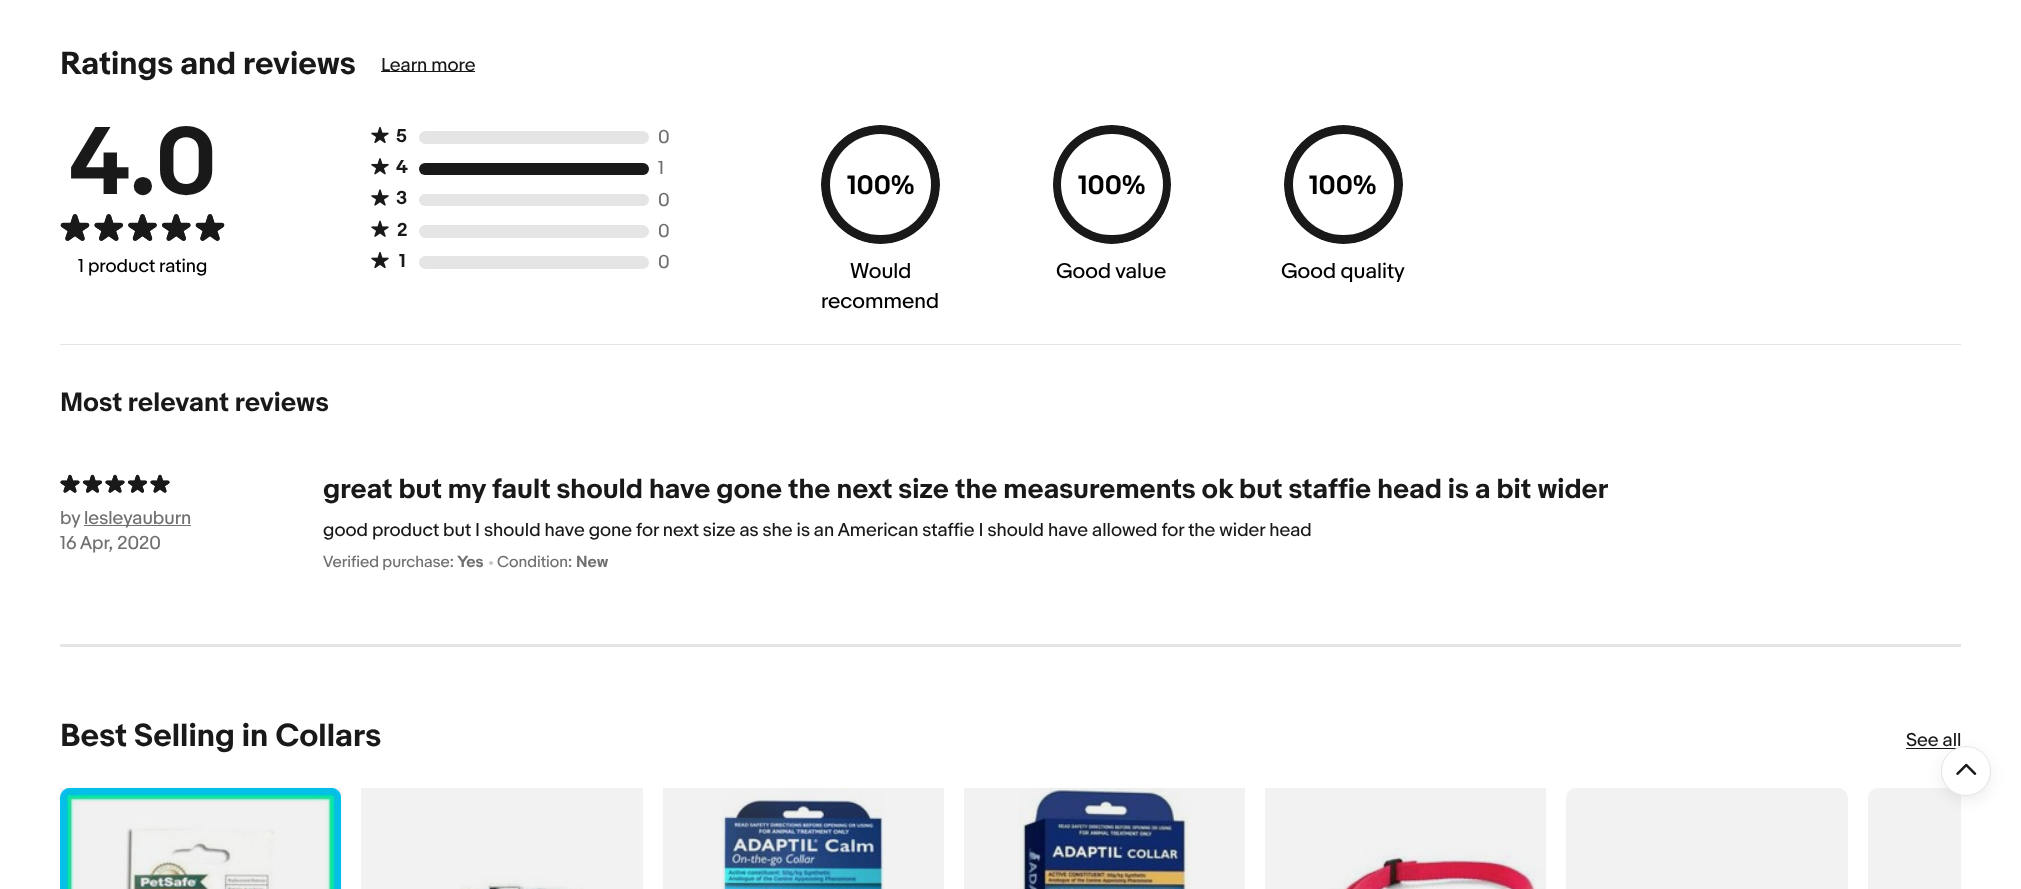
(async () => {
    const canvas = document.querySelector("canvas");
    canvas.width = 2021;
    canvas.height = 889;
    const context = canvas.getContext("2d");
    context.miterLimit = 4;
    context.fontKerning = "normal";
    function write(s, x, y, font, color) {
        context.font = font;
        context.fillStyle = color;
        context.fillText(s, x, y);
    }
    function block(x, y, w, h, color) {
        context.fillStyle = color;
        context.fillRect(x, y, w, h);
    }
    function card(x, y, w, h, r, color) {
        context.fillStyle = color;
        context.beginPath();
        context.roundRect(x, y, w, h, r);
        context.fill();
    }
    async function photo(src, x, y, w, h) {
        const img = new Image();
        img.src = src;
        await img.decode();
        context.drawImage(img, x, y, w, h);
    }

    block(0, 0, 2021, 889, "rgb(255, 255, 255)");
    write("Ratings and reviews", 60, 74, "bold 30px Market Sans", "rgb(25, 25, 25)");
    block(381, 71, 94, 1, "rgb(25, 25, 25)");
    write("Learn more", 381, 71, "17.5px Market Sans", "rgb(25, 25, 25)");
    write("4.0", 69, 194, "bold 90px Market Sans", "rgb(25, 25, 25)");
    await photo("media/1.png", 60, 214, 30, 27);
    await photo("media/2.png", 94, 214, 29, 27);
    await photo("media/3.png", 128, 214, 29, 27);
    await photo("media/4.png", 162, 214, 29, 27);
    await photo("media/1.png", 195, 214, 30, 27);
    write("1 product rating", 78, 272, "17.5px Market Sans", "rgb(0, 0, 0)");
    await photo("media/5.png", 371, 126, 18, 18);
    write("5", 396, 142, "bold 17.5px Market Sans", "rgb(25, 25, 25)");
    card(419, 131, 230, 13, 6.5, "rgb(229, 229, 229)");
    write("0", 658, 143, "17.5px Market Sans", "rgb(112, 112, 112)");
    await photo("media/6.png", 371, 158, 18, 17);
    write("4", 396, 173, "bold 17.5px Market Sans", "rgb(25, 25, 25)");
    card(419, 163, 230, 12, 6, "rgb(25, 25, 25)");
    write("1", 658, 174, "17.5px Market Sans", "rgb(112, 112, 112)");
    await photo("media/7.png", 371, 189, 18, 17);
    write("3", 396, 204, "bold 17.5px Market Sans", "rgb(25, 25, 25)");
    card(419, 194, 230, 12, 6, "rgb(229, 229, 229)");
    write("0", 658, 206, "17.5px Market Sans", "rgb(112, 112, 112)");
    await photo("media/8.png", 371, 220, 18, 17);
    write("2", 397, 236, "bold 17.5px Market Sans", "rgb(25, 25, 25)");
    card(419, 225, 230, 13, 6.5, "rgb(229, 229, 229)");
    write("0", 658, 237, "17.5px Market Sans", "rgb(112, 112, 112)");
    await photo("media/5.png", 371, 251, 18, 18);
    write("1", 399, 267, "bold 17.5px Market Sans", "rgb(25, 25, 25)");
    card(419, 256, 230, 13, 6.5, "rgb(229, 229, 229)");
    write("0", 658, 268, "17.5px Market Sans", "rgb(112, 112, 112)");
    context.fillStyle = "rgb(229, 229, 229)";
    context.beginPath();
    context.arc(880.5, 184.5, 59.5, 0, Math.PI * 2);
    context.fill();
    context.save();
    context.beginPath();
    context.roundRect(821, 125, 119, 119, 59.5);
    context.clip();
    context.fillStyle = "rgb(25, 25, 25)";
    context.beginPath();
    context.roundRect(821, 125, 59, 119, [59, 0, 0, 59]);
    context.fill();
    context.beginPath();
    context.roundRect(880, 125, 60, 119, [0, 59.5, 59.5, 0]);
    context.fill();
    context.restore();
    context.fillStyle = "rgb(255, 255, 255)";
    context.beginPath();
    context.arc(880.5, 184.5, 50.5, 0, Math.PI * 2);
    context.fill();
    write("100%", 847, 194, "bold 25px Market Sans", "rgb(0, 0, 0)");
    write("Would", 850, 278, "20px Market Sans", "rgb(0, 0, 0)");
    write("recommend", 821, 308, "20px Market Sans", "rgb(0, 0, 0)");
    card(1053, 125, 118, 119, 59, "rgb(229, 229, 229)");
    context.save();
    context.beginPath();
    context.roundRect(1053, 125, 118, 119, 59);
    context.clip();
    context.fillStyle = "rgb(25, 25, 25)";
    context.beginPath();
    context.roundRect(1053, 125, 58, 119, [58, 0, 0, 58]);
    context.fill();
    context.beginPath();
    context.roundRect(1111, 125, 60, 119, [0, 59, 59, 0]);
    context.fill();
    context.restore();
    card(1061, 134, 102, 101, 50.5, "rgb(255, 255, 255)");
    write("100%", 1078, 194, "bold 25px Market Sans", "rgb(0, 0, 0)");
    write("Good value", 1056, 278, "20px Market Sans", "rgb(0, 0, 0)");
    context.fillStyle = "rgb(229, 229, 229)";
    context.beginPath();
    context.arc(1343.5, 184.5, 59.5, 0, Math.PI * 2);
    context.fill();
    context.save();
    context.beginPath();
    context.roundRect(1284, 125, 119, 119, 59.5);
    context.clip();
    context.fillStyle = "rgb(25, 25, 25)";
    context.beginPath();
    context.roundRect(1284, 125, 59, 119, [59, 0, 0, 59]);
    context.fill();
    context.beginPath();
    context.roundRect(1343, 125, 60, 119, [0, 59.5, 59.5, 0]);
    context.fill();
    context.restore();
    context.fillStyle = "rgb(255, 255, 255)";
    context.beginPath();
    context.arc(1343.5, 184.5, 50.5, 0, Math.PI * 2);
    context.fill();
    write("100%", 1309, 194, "bold 25px Market Sans", "rgb(0, 0, 0)");
    write("Good quality", 1281, 278, "20px Market Sans", "rgb(0, 0, 0)");
    block(60, 344, 1901, 1, "rgb(229, 229, 229)");
    write("Most relevant reviews", 60, 411, "bold 25px Market Sans", "rgb(25, 25, 25)");
    await photo("media/9.png", 60, 474, 20, 19);
    await photo("media/10.png", 83, 474, 19, 19);
    await photo("media/9.png", 105, 474, 20, 19);
    await photo("media/10.png", 128, 474, 19, 19);
    await photo("media/9.png", 150, 474, 20, 19);
    write("by", 60, 524, "17.5px Market Sans", "rgb(112, 112, 112)");
    block(84, 525, 107, 1, "rgb(112, 112, 112)");
    write("lesleyauburn", 84, 524, "17.5px Market Sans", "rgb(112, 112, 112)");
    write("16 Apr, 2020", 60, 549, "17.5px Market Sans", "rgb(112, 112, 112)");
    write("great but my fault should have gone the next size the measurements ok but staffie head is a bit wider", 323, 498, "bold 26px Market Sans", "rgb(25, 25, 25)");
    write("good product but I should have gone for next size as she is an American staffie I should have allowed for the wider head", 323, 536, "17.5px Market Sans", "rgb(25, 25, 25)");
    write("Verified purchase:", 323, 567, "15px Market Sans", "rgb(112, 112, 112)");
    write("Yes", 457, 567, "bold 15px Market Sans", "rgb(112, 112, 112)");
    context.fillStyle = "rgb(199, 199, 199)";
    context.beginPath();
    context.arc(491, 563, 2, 0, Math.PI * 2);
    context.fill();
    write("Condition:", 497, 567, "15px Market Sans", "rgb(112, 112, 112)");
    write("New", 576, 567, "bold 15px Market Sans", "rgb(112, 112, 112)");
    block(60, 644, 1901, 3, "rgb(229, 229, 229)");
    write("Best Selling in Collars", 60, 746, "bold 30px Market Sans", "rgb(25, 25, 25)");
    write("See all", 1906, 746, "17.5px Market Sans", "rgb(25, 25, 25)");
    block(1906, 748, 55, 1, "rgb(25, 25, 25)");
    await photo("media/11.png", 60, 787, 282, 102);
    block(60, 788, 281, 101, "rgba(0, 0, 0, 0.05)");
    await photo("media/12.png", 460, 878, 124, 11);
    block(361, 788, 282, 101, "rgba(0, 0, 0, 0.05)");
    await photo("media/13.png", 721, 788, 163, 101);
    block(663, 788, 281, 101, "rgba(0, 0, 0, 0.05)");
    await photo("media/14.png", 1019, 788, 172, 101);
    block(964, 788, 281, 101, "rgba(0, 0, 0, 0.05)");
    await photo("media/15.png", 1329, 848, 216, 41);
    block(1265, 788, 281, 101, "rgba(0, 0, 0, 0.05)");
    card(1566, 788, 282, 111, 10, "rgb(242, 242, 242)");
    context.beginPath();
    context.moveTo(1878, 788);
    context.lineTo(1961, 788);
    context.lineTo(1961, 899);
    context.lineTo(1878, 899);
    context.bezierCurveTo(1872.5, 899, 1868, 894.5, 1868, 889);
    context.lineTo(1868, 798);
    context.bezierCurveTo(1868, 792.5, 1872.5, 788, 1878, 788);
    context.closePath();
    context.fill();
    context.fillStyle = "rgba(0, 0, 0, 0.07)";
    context.filter = "blur(7.5px)";
    context.beginPath();
    context.roundRect(1941, 751, 50, 50, 25);
    context.fill();
    context.filter = "none";
    context.fillStyle = "rgb(255, 255, 255)";
    context.beginPath();
    context.arc(1966, 771, 24.5, 0, Math.PI * 2);
    context.fill();
    context.strokeStyle = "rgb(229, 229, 229)";
    context.stroke();
    await photo("media/16.png", 1956, 763, 21, 12);
})();
